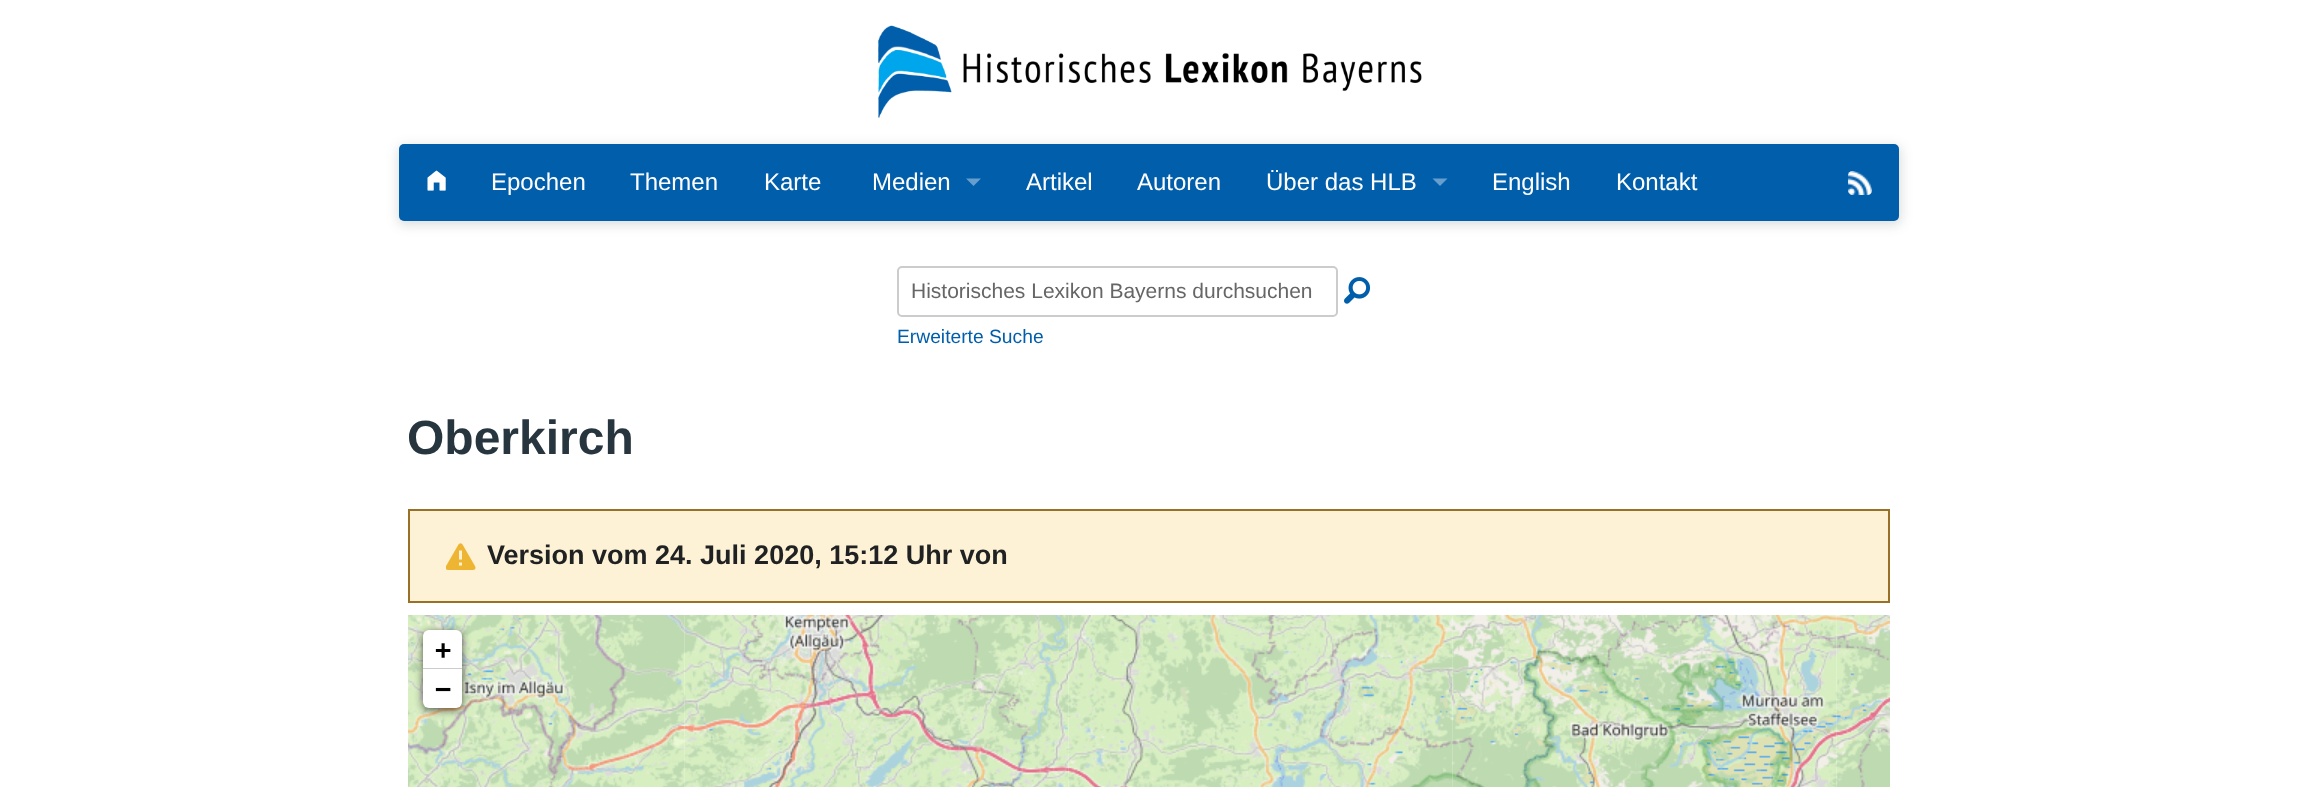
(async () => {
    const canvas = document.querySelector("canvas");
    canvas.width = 2297;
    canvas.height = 787;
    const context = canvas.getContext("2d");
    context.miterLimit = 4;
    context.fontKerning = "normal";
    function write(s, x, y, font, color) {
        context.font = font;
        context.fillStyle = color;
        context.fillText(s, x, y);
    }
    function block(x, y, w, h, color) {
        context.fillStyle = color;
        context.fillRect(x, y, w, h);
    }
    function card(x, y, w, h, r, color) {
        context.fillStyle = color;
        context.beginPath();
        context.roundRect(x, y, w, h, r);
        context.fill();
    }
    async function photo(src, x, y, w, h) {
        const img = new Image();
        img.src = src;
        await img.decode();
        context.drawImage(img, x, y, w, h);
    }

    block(0, 0, 2297, 787, "rgb(255, 255, 255)");
    await photo("media/1.png", 878, 25, 544, 93);
    context.fillStyle = "rgba(39, 53, 62, 0.17)";
    context.filter = "blur(6px)";
    context.beginPath();
    context.roundRect(398, 146, 1503, 79, 6);
    context.fill();
    context.filter = "none";
    card(399, 144, 1500, 77, 5, "rgb(0, 94, 171)");
    await photo("media/2.png", 427, 170, 19, 21);
    write("Epochen", 491, 190, "24px Liberation Sans", "rgb(255, 255, 255)");
    write("Themen", 630, 190, "24px Liberation Sans", "rgb(255, 255, 255)");
    write("Karte", 764, 190, "24px Liberation Sans", "rgb(255, 255, 255)");
    write("Medien", 872, 190, "24px Liberation Sans", "rgb(255, 255, 255)");
    context.fillStyle = "rgb(102, 158, 205)";
    context.beginPath();
    context.moveTo(966, 178.5);
    context.lineTo(981, 178.5);
    context.lineTo(973.5, 186);
    context.closePath();
    context.fill();
    write("Artikel", 1026, 190, "24px Liberation Sans", "rgb(255, 255, 255)");
    write("Autoren", 1137, 190, "24px Liberation Sans", "rgb(255, 255, 255)");
    write("Über das HLB", 1266, 190, "24px Liberation Sans", "rgb(255, 255, 255)");
    context.fillStyle = "rgb(102, 158, 205)";
    context.beginPath();
    context.moveTo(1432.5, 178.5);
    context.lineTo(1447.5, 178.5);
    context.lineTo(1440, 186);
    context.closePath();
    context.fill();
    write("English", 1492, 190, "24px Liberation Sans", "rgb(255, 255, 255)");
    write("Kontakt", 1616, 190, "24px Liberation Sans", "rgb(255, 255, 255)");
    await photo("media/3.png", 1848, 171, 24, 24);
    context.beginPath();
    context.roundRect(898, 267, 439, 49, 4);
    context.strokeStyle = "rgb(204, 204, 204)";
    context.lineWidth = 2;
    context.stroke();
    write("Historisches Lexikon Bayerns durchsuchen", 911, 298, "21px Liberation Sans", "rgb(102, 102, 102)");
    await photo("media/4.png", 1344, 277, 27, 27);
    write("Erweiterte Suche", 897, 343, "19.25px Liberation Sans", "rgb(0, 94, 171)");
    write("Oberkirch", 407, 454, "bold 48px Liberation Sans", "rgb(39, 53, 62)");
    context.fillStyle = "rgb(253, 242, 213)";
    context.beginPath();
    context.rect(409, 510, 1480, 92);
    context.fill();
    context.strokeStyle = "rgb(152, 112, 39)";
    context.stroke();
    await photo("media/5.png", 446, 543, 30, 27);
    write("Version vom 24. Juli 2020, 15:12 Uhr von", 487, 564, "bold 27px Liberation Sans", "rgb(32, 33, 34)");
    await photo("media/6.png", 408, 615, 276, 172);
    await photo("media/7.png", 684, 615, 384, 172);
    await photo("media/8.png", 1068, 615, 384, 172);
    await photo("media/9.png", 1451, 615, 385, 172);
    await photo("media/10.png", 1835, 615, 55, 172);
    context.fillStyle = "rgba(0, 0, 0, 0.65)";
    context.filter = "blur(4px)";
    context.beginPath();
    context.roundRect(423, 632, 39, 78, 6);
    context.fill();
    context.filter = "none";
    context.fillStyle = "rgb(255, 255, 255)";
    context.beginPath();
    context.roundRect(423, 630, 39, 39, [6, 6, 0, 0]);
    context.fill();
    block(423, 668, 39, 1, "rgb(204, 204, 204)");
    write("+", 435, 659, "bold 27px DejaVu Sans Mono", "rgb(0, 0, 0)");
    context.fillStyle = "rgb(255, 255, 255)";
    context.beginPath();
    context.roundRect(423, 669, 39, 39, [0, 0, 6, 6]);
    context.fill();
    write("−", 435, 698, "bold 27px DejaVu Sans Mono", "rgb(0, 0, 0)");
})();
